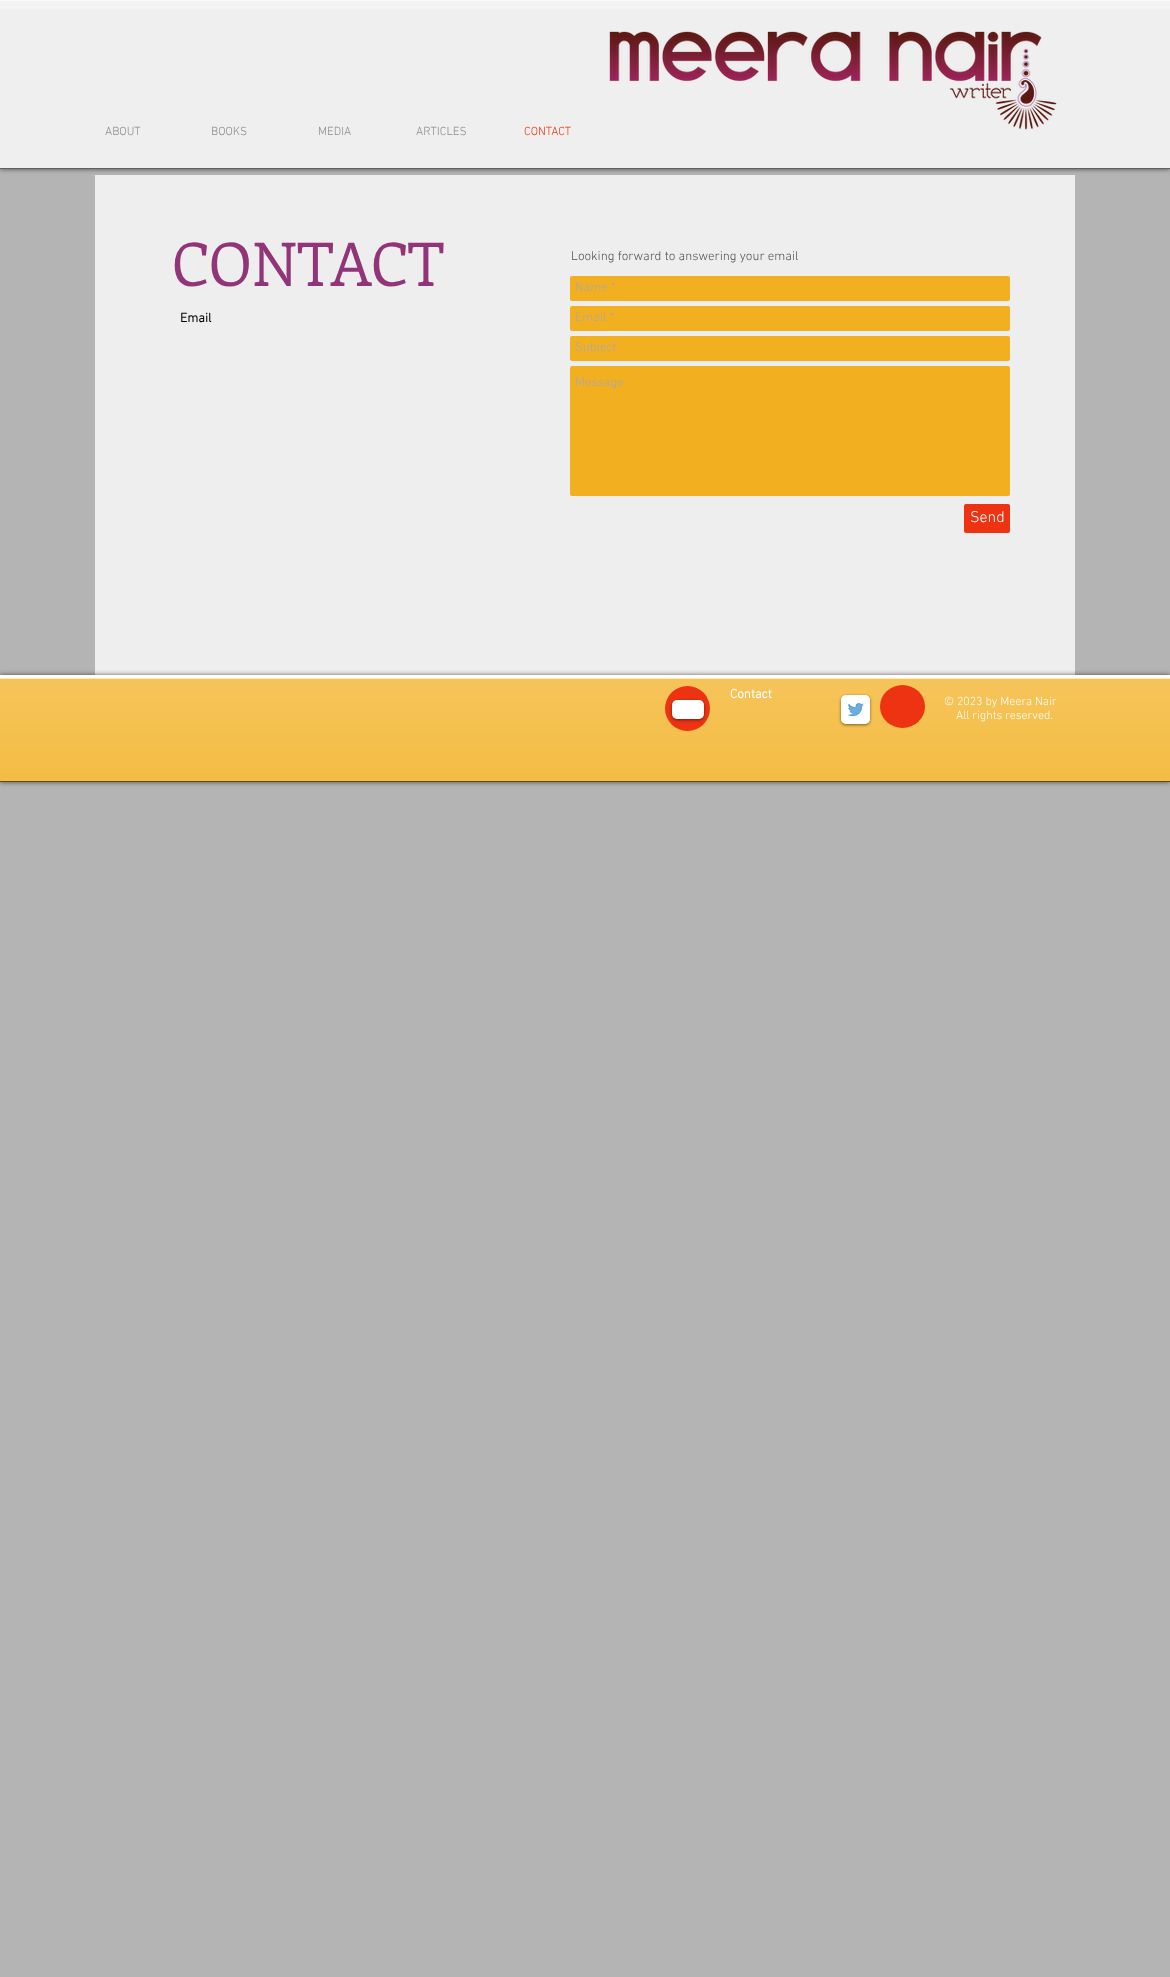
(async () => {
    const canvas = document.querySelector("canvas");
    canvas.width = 1170;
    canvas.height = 1977;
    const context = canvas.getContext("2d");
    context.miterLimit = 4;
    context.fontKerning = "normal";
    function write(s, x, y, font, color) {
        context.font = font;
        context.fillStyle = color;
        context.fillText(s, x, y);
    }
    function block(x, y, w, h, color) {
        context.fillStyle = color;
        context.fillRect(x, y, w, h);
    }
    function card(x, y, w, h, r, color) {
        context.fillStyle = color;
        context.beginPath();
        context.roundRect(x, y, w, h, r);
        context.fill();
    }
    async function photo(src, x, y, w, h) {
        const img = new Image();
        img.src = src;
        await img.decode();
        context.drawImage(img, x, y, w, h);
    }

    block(0, 0, 1170, 1977, "rgb(180, 180, 180)");
    context.fillStyle = "rgba(0, 0, 0, 0.6)";
    context.filter = "blur(2.5px)";
    context.beginPath();
    context.rect(0, 0, 1170, 169);
    context.fill();
    context.filter = "none";
    block(0, 10, 1170, 158, "rgb(239, 239, 239)");
    block(0, 1, 1170, 9, "rgb(243, 243, 243)");
    block(0, 168, 1170, 1, "rgb(96, 96, 96)");
    block(0, 0, 1170, 1, "rgb(250, 250, 250)");
    await photo("media/1.png", 609, 31, 448, 99);
    write("ABOUT", 105, 135, "300 12px 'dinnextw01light'", "rgb(139, 139, 139)");
    write("BOOKS", 211, 135, "300 12px 'dinnextw01light'", "rgb(139, 139, 139)");
    write("MEDIA", 318, 135, "300 12px 'dinnextw01light'", "rgb(139, 139, 139)");
    write("ARTICLES", 416, 135, "300 12px 'dinnextw01light'", "rgb(139, 139, 139)");
    write("CONTACT", 524, 135, "300 12px 'dinnextw01light'", "rgb(237, 51, 18)");
    block(95, 175, 980, 500, "rgb(238, 238, 238)");
    write("CONTACT", 172, 286, "60px Enriqueta", "rgb(145, 53, 120)");
    write("Looking forward to answering your email", 571, 260, "300 13px 'dinnextw01light'", "rgb(79, 79, 79)");
    write("Email", 180, 322, "bold 13px 'dinnextw01light'", "rgb(0, 0, 0)");
    card(570, 276, 440, 25, 2, "rgb(242, 176, 33)");
    write("Name *", 575, 291, "300 13px 'dinnextw01light'", "rgb(169, 169, 169)");
    card(570, 306, 440, 25, 2, "rgb(242, 176, 33)");
    write("Email *", 575, 321, "300 13px 'dinnextw01light'", "rgb(169, 169, 169)");
    card(570, 336, 440, 25, 2, "rgb(242, 176, 33)");
    write("Subject", 575, 351, "300 13px 'dinnextw01light'", "rgb(169, 169, 169)");
    card(570, 366, 440, 130, 2, "rgb(242, 176, 33)");
    write("Message", 575, 386, "300 13px 'dinnextw01light'", "rgb(169, 169, 169)");
    card(964, 504, 46, 29, 2, "rgb(237, 51, 18)");
    write("Send", 970, 522, "300 16px 'dinnextw01light'", "rgb(255, 255, 255)");
    context.fillStyle = "rgba(0, 0, 0, 0.6)";
    context.filter = "blur(2.5px)";
    context.beginPath();
    context.rect(0, 675, 1170, 107);
    context.fill();
    context.filter = "none";
    block(0, 679, 1170, 102, "rgb(242, 176, 33)");
    await photo("media/2.png", 0, 679, 1170, 102);
    block(0, 781, 1170, 1, "rgb(98, 75, 27)");
    block(0, 678, 1170, 1, "rgb(251, 232, 189)");
    block(0, 675, 1170, 3, "rgb(255, 255, 255)");
    context.fillStyle = "rgb(237, 51, 18)";
    context.beginPath();
    context.arc(687.5, 708.5, 22.5, 0, Math.PI * 2);
    context.fill();
    context.fillStyle = "rgba(0, 0, 0, 0.5)";
    context.filter = "blur(1.5px)";
    context.beginPath();
    context.roundRect(672, 701, 32, 19, 5);
    context.fill();
    context.filter = "none";
    card(672, 700, 32, 19, 5, "rgb(255, 255, 255)");
    write("Contact", 730, 698, "bold 13px 'dinnextw01light'", "rgb(255, 255, 255)");
    context.fillStyle = "rgba(0, 0, 0, 0.5)";
    context.filter = "blur(1.5px)";
    context.beginPath();
    context.roundRect(841, 696, 29, 29, 5);
    context.fill();
    context.filter = "none";
    card(841, 695, 29, 29, 5, "rgb(255, 255, 255)");
    await photo("media/3.png", 841, 695, 29, 29);
    context.fillStyle = "rgb(237, 51, 18)";
    context.beginPath();
    context.ellipse(902.5, 706.5, 22.5, 21.5, 0, 0, Math.PI * 2);
    context.fill();
    write("© 2023 by Meera Nair", 944, 705, "300 12px 'dinnextw01light'", "rgb(255, 255, 255)");
    write("All rights reserved.", 956, 719, "300 12px 'dinnextw01light'", "rgb(255, 255, 255)");
})();
